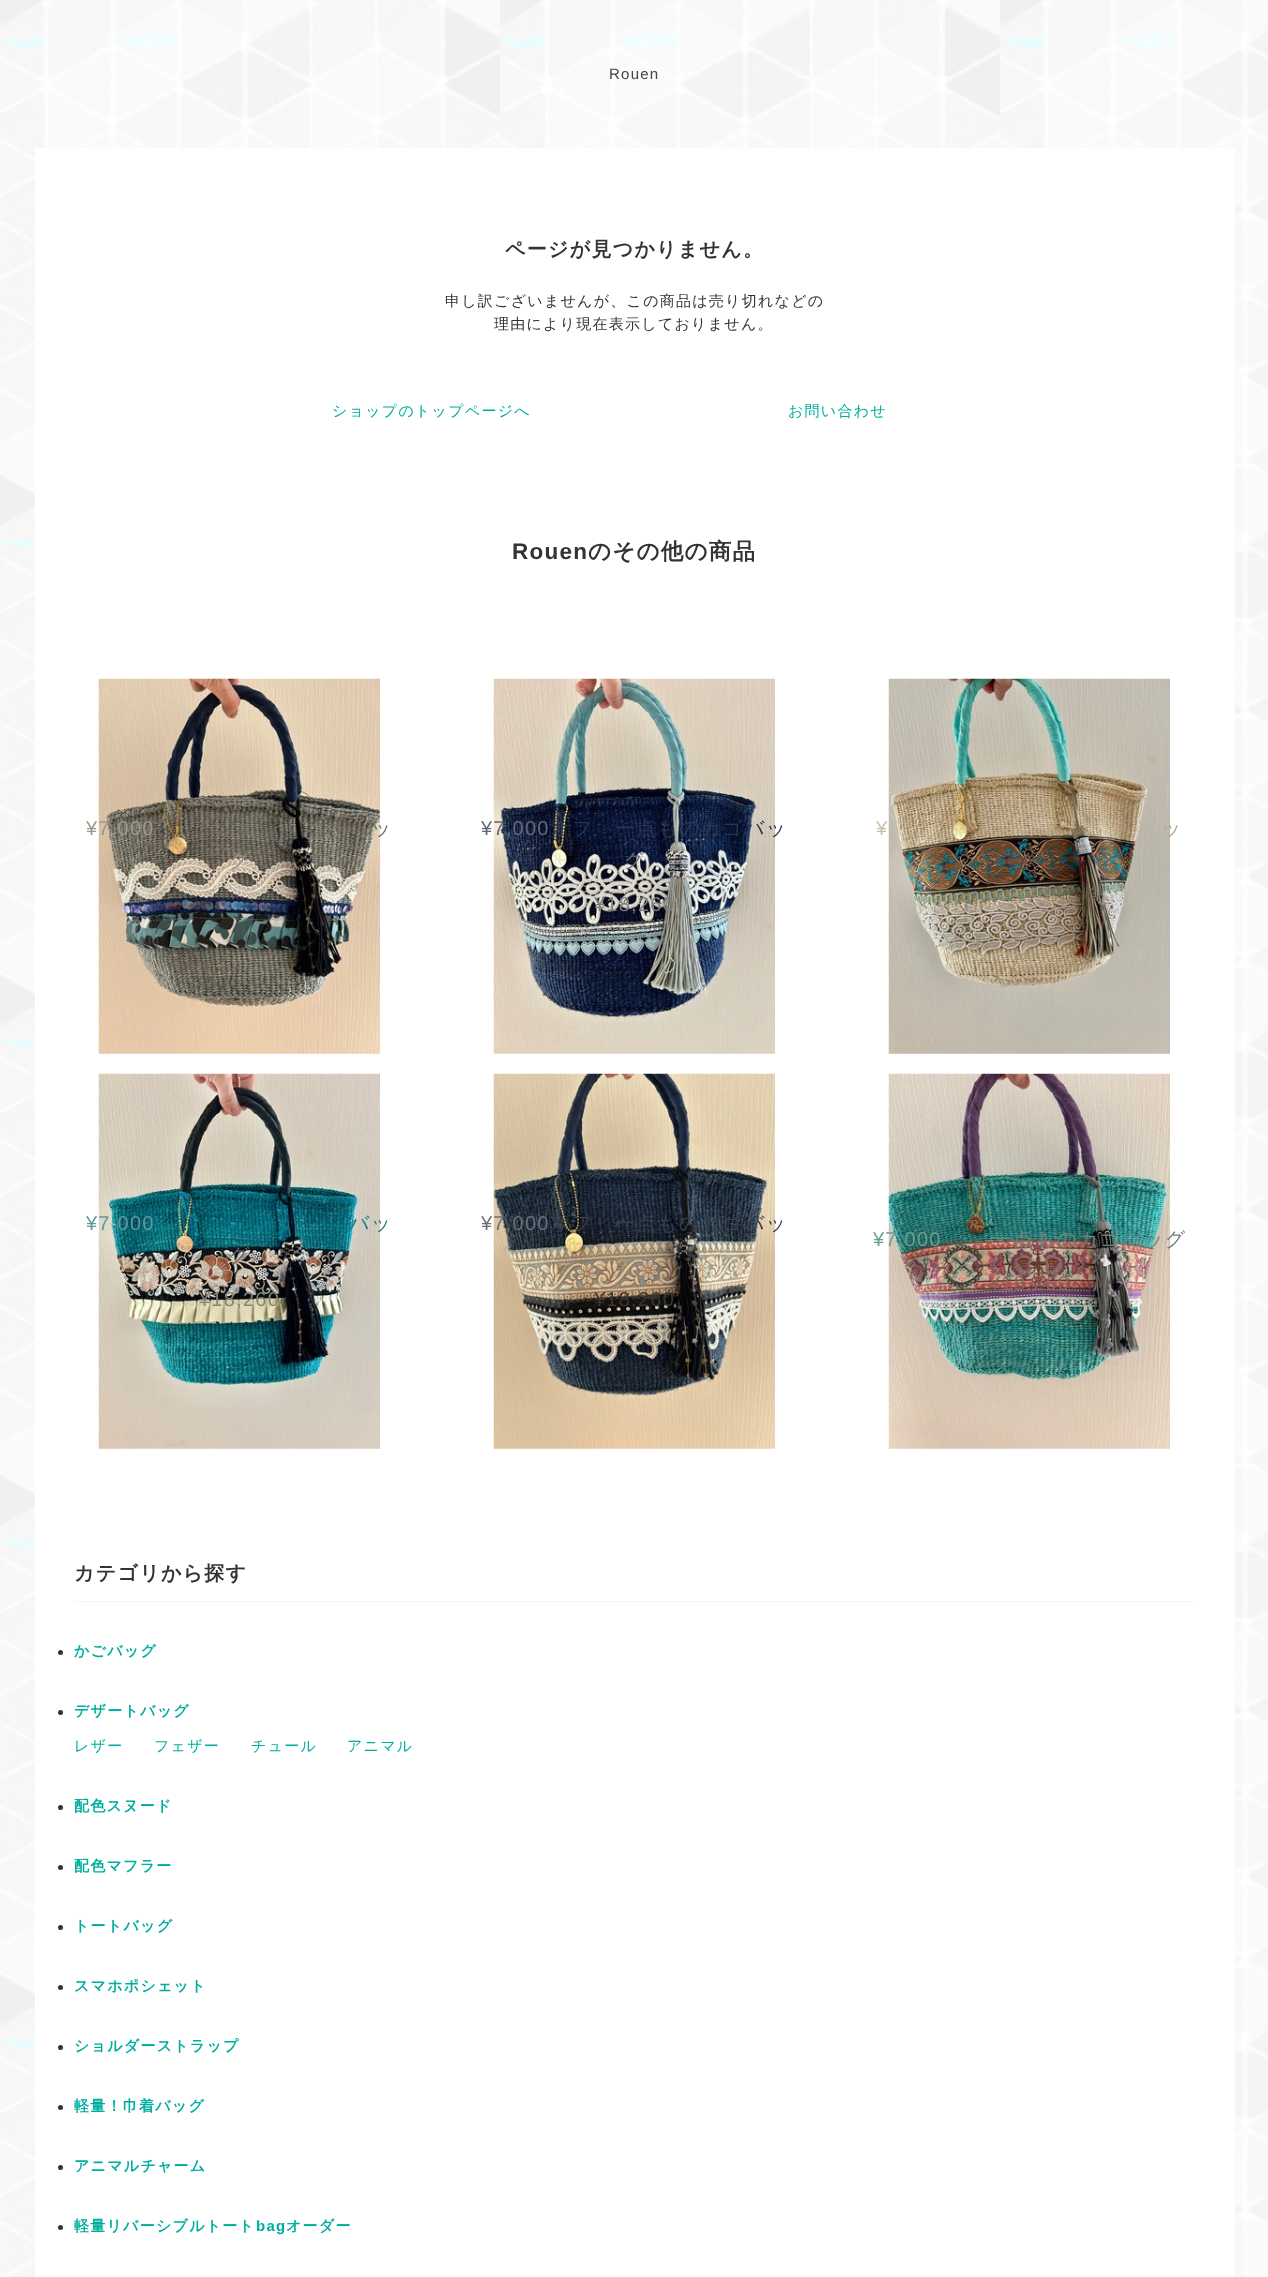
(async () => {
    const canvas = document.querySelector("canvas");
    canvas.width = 1268;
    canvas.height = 2277;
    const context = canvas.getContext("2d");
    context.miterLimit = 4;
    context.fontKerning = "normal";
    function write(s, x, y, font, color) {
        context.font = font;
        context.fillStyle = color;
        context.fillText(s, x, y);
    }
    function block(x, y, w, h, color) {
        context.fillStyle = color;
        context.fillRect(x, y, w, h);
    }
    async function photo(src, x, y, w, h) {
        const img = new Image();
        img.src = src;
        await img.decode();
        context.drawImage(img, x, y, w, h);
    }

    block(0, 0, 1268, 2277, "rgb(255, 255, 255)");
    await photo("media/1.png", 0, 0, 1268, 2277);
    context.letterSpacing = "1.25px";
    write("Rouen", 609, 79, "15px Liberation Sans", "rgb(67, 67, 67)");
    block(35, 148, 1200, 2129, "rgb(255, 255, 255)");
    write("ページが見つかりません。", 505, 256, "bold 20px WenQuanYi Zen Hei", "rgb(51, 51, 51)");
    write("申し訳ございませんが、この商品は売り切れなどの", 445, 306, "500 15px WenQuanYi Zen Hei", "rgb(51, 51, 51)");
    write("理由により現在表示しておりません。", 494, 329, "500 15px WenQuanYi Zen Hei", "rgb(51, 51, 51)");
    write("ショップのトップページへ", 332, 416, "500 15px WenQuanYi Zen Hei", "rgb(0, 174, 159)");
    write("お問い合わせ", 788, 416, "500 15px WenQuanYi Zen Hei", "rgb(0, 174, 159)");
    write("Rouen", 512, 559, "bold 22.5px Liberation Sans", "rgb(51, 51, 51)");
    write("のその他の商品", 588, 559, "bold 22.5px WenQuanYi Zen Hei", "rgb(51, 51, 51)");
    await photo("media/2.png", 98, 678, 282, 376);
    write("¥7,000", 86, 835, "20px Liberation Sans", "rgb(156, 151, 140)");
    write("ッ", 371, 835, "500 20px WenQuanYi Zen Hei", "rgb(111, 107, 96)");
    write("グ", 229, 867, "500 20px WenQuanYi Zen Hei", "rgb(155, 145, 130)");
    await photo("media/3.png", 493, 678, 282, 376);
    write("¥7,000", 481, 835, "20px Liberation Sans", "rgb(99, 105, 121)");
    write("オフ　一点ものカゴバッ", 550, 835, "500 20px WenQuanYi Zen Hei", "rgb(43, 54, 78)");
    write("グ", 624, 867, "500 20px WenQuanYi Zen Hei", "rgb(107, 111, 121)");
    write("¥18,260", 594, 911, "20px Liberation Sans", "rgb(127, 126, 125)");
    await photo("media/4.png", 888, 678, 282, 376);
    write("¥", 876, 835, "20px Liberation Sans", "rgb(204, 191, 169)");
    write("ッ", 1161, 835, "500 20px WenQuanYi Zen Hei", "rgb(180, 163, 135)");
    write("グ", 1019, 867, "500 20px WenQuanYi Zen Hei", "rgb(96, 76, 63)");
    await photo("media/5.png", 98, 1073, 282, 376);
    write("¥7,000", 86, 1230, "20px Liberation Sans", "rgb(95, 153, 158)");
    write("バッ", 349, 1230, "500 20px WenQuanYi Zen Hei", "rgb(40, 120, 130)");
    write("グ", 229, 1262, "500 20px WenQuanYi Zen Hei", "rgb(101, 102, 98)");
    write("¥18,260", 199, 1306, "20px Liberation Sans", "rgb(136, 133, 116)");
    await photo("media/6.png", 493, 1073, 282, 376);
    write("¥7,000", 481, 1230, "20px Liberation Sans", "rgb(107, 111, 121)");
    write("オフ　一点ものカゴバッ", 550, 1230, "500 20px WenQuanYi Zen Hei", "rgb(55, 63, 72)");
    write("¥18,260", 594, 1306, "20px Liberation Sans", "rgb(62, 53, 44)");
    await photo("media/7.png", 888, 1073, 282, 376);
    write("¥7,000", 873, 1246, "20px Liberation Sans", "rgb(110, 155, 149)");
    write("一点ものカゴバッグ", 992, 1246, "500 20px WenQuanYi Zen Hei", "rgb(110, 130, 124)");
    write("¥18,260", 989, 1290, "20px Liberation Sans", "rgb(146, 98, 93)");
    block(75, 1601, 1120, 1, "rgb(245, 245, 245)");
    write("カテゴリから探す", 74, 1580, "bold 20px WenQuanYi Zen Hei", "rgb(51, 51, 51)");
    context.beginPath();
    context.arc(60.5, 1652.5, 2.5, 0, Math.PI * 2);
    context.fill();
    write("かごバッグ", 74, 1656, "bold 15px WenQuanYi Zen Hei", "rgb(0, 174, 159)");
    context.fillStyle = "rgb(51, 51, 51)";
    context.beginPath();
    context.arc(60.5, 1712.5, 2.5, 0, Math.PI * 2);
    context.fill();
    write("デザートバッグ", 74, 1716, "bold 15px WenQuanYi Zen Hei", "rgb(0, 174, 159)");
    write("レザー", 74, 1751, "500 15px WenQuanYi Zen Hei", "rgb(0, 174, 159)");
    write("フェザー", 154, 1751, "500 15px WenQuanYi Zen Hei", "rgb(0, 174, 159)");
    write("チュール", 251, 1751, "500 15px WenQuanYi Zen Hei", "rgb(0, 174, 159)");
    write("アニマル", 347, 1751, "500 15px WenQuanYi Zen Hei", "rgb(0, 174, 159)");
    context.fillStyle = "rgb(51, 51, 51)";
    context.beginPath();
    context.arc(60.5, 1807.5, 2.5, 0, Math.PI * 2);
    context.fill();
    write("配色スヌード", 74, 1811, "bold 15px WenQuanYi Zen Hei", "rgb(0, 174, 159)");
    context.fillStyle = "rgb(51, 51, 51)";
    context.beginPath();
    context.arc(60.5, 1867.5, 2.5, 0, Math.PI * 2);
    context.fill();
    write("配色マフラー", 74, 1871, "bold 15px WenQuanYi Zen Hei", "rgb(0, 174, 159)");
    context.fillStyle = "rgb(51, 51, 51)";
    context.beginPath();
    context.arc(60.5, 1927.5, 2.5, 0, Math.PI * 2);
    context.fill();
    write("トートバッグ", 74, 1931, "bold 15px WenQuanYi Zen Hei", "rgb(0, 174, 159)");
    context.fillStyle = "rgb(51, 51, 51)";
    context.beginPath();
    context.arc(60.5, 1987.5, 2.5, 0, Math.PI * 2);
    context.fill();
    write("スマホポシェット", 74, 1991, "bold 15px WenQuanYi Zen Hei", "rgb(0, 174, 159)");
    context.fillStyle = "rgb(51, 51, 51)";
    context.beginPath();
    context.arc(60.5, 2047.5, 2.5, 0, Math.PI * 2);
    context.fill();
    write("ショルダーストラップ", 74, 2051, "bold 15px WenQuanYi Zen Hei", "rgb(0, 174, 159)");
    context.fillStyle = "rgb(51, 51, 51)";
    context.beginPath();
    context.arc(60.5, 2107.5, 2.5, 0, Math.PI * 2);
    context.fill();
    write("軽量！巾着バッグ", 74, 2111, "bold 15px WenQuanYi Zen Hei", "rgb(0, 174, 159)");
    context.fillStyle = "rgb(51, 51, 51)";
    context.beginPath();
    context.arc(60.5, 2167.5, 2.5, 0, Math.PI * 2);
    context.fill();
    write("アニマルチャーム", 74, 2171, "bold 15px WenQuanYi Zen Hei", "rgb(0, 174, 159)");
    context.fillStyle = "rgb(51, 51, 51)";
    context.beginPath();
    context.arc(60.5, 2227.5, 2.5, 0, Math.PI * 2);
    context.fill();
    write("軽量リバーシブルトート", 74, 2231, "bold 15px WenQuanYi Zen Hei", "rgb(0, 174, 159)");
    write("bag", 256, 2231, "bold 15px Liberation Sans", "rgb(0, 174, 159)");
    write("オーダー", 286, 2231, "bold 15px WenQuanYi Zen Hei", "rgb(0, 174, 159)");
})();
